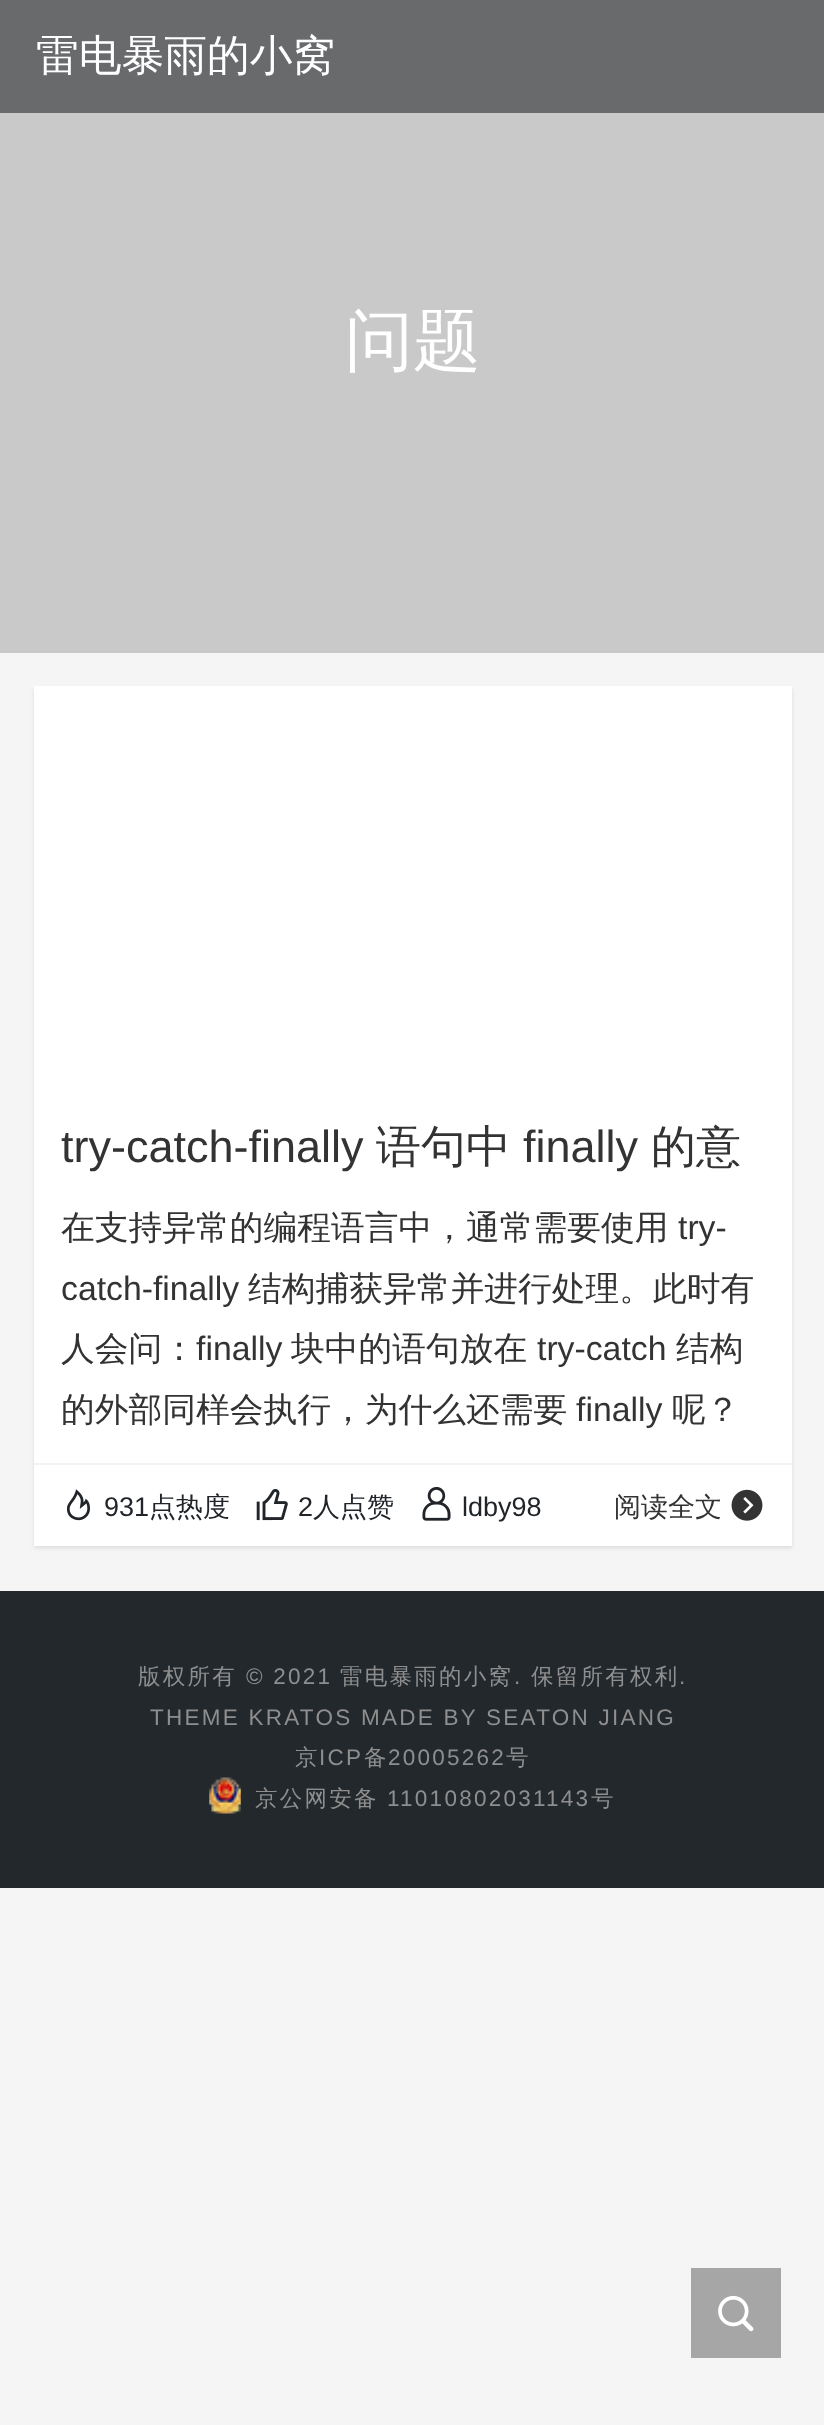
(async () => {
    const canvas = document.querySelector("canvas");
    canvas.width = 824;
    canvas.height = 2425;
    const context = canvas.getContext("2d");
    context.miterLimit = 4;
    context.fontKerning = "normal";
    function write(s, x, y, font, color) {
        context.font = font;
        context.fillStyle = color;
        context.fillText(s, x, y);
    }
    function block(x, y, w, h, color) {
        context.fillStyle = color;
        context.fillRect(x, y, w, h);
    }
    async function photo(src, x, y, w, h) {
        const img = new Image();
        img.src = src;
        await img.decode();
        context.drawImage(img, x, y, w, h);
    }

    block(0, 0, 824, 2425, "rgb(245, 245, 245)");
    block(0, 0, 824, 113, "rgb(104, 106, 107)");
    write("雷电暴雨的小窝", 36, 70, "500 42.75px WenQuanYi Zen Hei", "rgb(255, 255, 255)");
    block(0, 113, 824, 540, "rgb(201, 201, 201)");
    write("问题", 345, 364, "500 68px WenQuanYi Zen Hei", "rgb(255, 255, 255)");
    context.fillStyle = "rgba(0, 0, 0, 0.1)";
    context.filter = "blur(2px)";
    context.beginPath();
    context.rect(34, 689, 758, 859);
    context.fill();
    context.filter = "none";
    block(34, 686, 758, 860, "rgb(255, 255, 255)");
    write("try-catch-finally", 61, 1162, "45px Liberation Sans", "rgb(51, 51, 51)");
    write("语句中", 376, 1162, "500 45px WenQuanYi Zen Hei", "rgb(51, 51, 51)");
    write("finally", 523, 1162, "45px Liberation Sans", "rgb(51, 51, 51)");
    write("的意", 651, 1162, "500 45px WenQuanYi Zen Hei", "rgb(51, 51, 51)");
    write("在支持异常的编程语言中，通常需要使用", 61, 1239, "500 33.75px WenQuanYi Zen Hei", "rgb(51, 51, 51)");
    write("try-", 678, 1239, "33.75px Liberation Sans", "rgb(51, 51, 51)");
    write("catch-finally", 61, 1300, "33.75px Liberation Sans", "rgb(51, 51, 51)");
    write("结构捕获异常并进行处理。此时有", 248, 1300, "500 33.75px WenQuanYi Zen Hei", "rgb(51, 51, 51)");
    write("人会问：", 61, 1360, "500 33.75px WenQuanYi Zen Hei", "rgb(51, 51, 51)");
    write("finally", 196, 1360, "33.75px Liberation Sans", "rgb(51, 51, 51)");
    write("块中的语句放在", 291, 1360, "500 33.75px WenQuanYi Zen Hei", "rgb(51, 51, 51)");
    write("try-catch", 537, 1360, "33.75px Liberation Sans", "rgb(51, 51, 51)");
    write("结构", 676, 1360, "500 33.75px WenQuanYi Zen Hei", "rgb(51, 51, 51)");
    write("的外部同样会执行，为什么还需要", 61, 1421, "500 33.75px WenQuanYi Zen Hei", "rgb(51, 51, 51)");
    write("finally", 576, 1421, "33.75px Liberation Sans", "rgb(51, 51, 51)");
    write("呢？", 672, 1421, "500 33.75px WenQuanYi Zen Hei", "rgb(51, 51, 51)");
    block(34, 1463, 758, 2, "rgb(243, 243, 243)");
    await photo("media/1.png", 66, 1489, 24, 32);
    write("931", 104, 1516, "27px Liberation Sans", "rgb(33, 37, 41)");
    write("点热度", 149, 1516, "500 27px WenQuanYi Zen Hei", "rgb(33, 37, 41)");
    await photo("media/2.png", 256, 1489, 32, 32);
    write("2", 298, 1516, "27px Liberation Sans", "rgb(33, 37, 41)");
    write("人点赞", 313, 1516, "500 27px WenQuanYi Zen Hei", "rgb(33, 37, 41)");
    await photo("media/3.png", 422, 1487, 29, 34);
    write("ldby98", 462, 1516, "27px Liberation Sans", "rgb(33, 37, 41)");
    write("阅读全文", 614, 1516, "500 27px WenQuanYi Zen Hei", "rgb(51, 51, 51)");
    await photo("media/4.png", 731, 1489, 32, 32);
    block(0, 1591, 824, 297, "rgb(35, 40, 45)");
    context.letterSpacing = "2.25px";
    write("版权所有", 138, 1684, "500 22.5px WenQuanYi Zen Hei", "rgb(142, 142, 142)");
    write("© 2021", 246, 1684, "22.5px Liberation Sans", "rgb(142, 142, 142)");
    write("雷电暴雨的小窝", 340, 1684, "500 22.5px WenQuanYi Zen Hei", "rgb(142, 142, 142)");
    write(".", 514, 1684, "22.5px Liberation Sans", "rgb(142, 142, 142)");
    write("保留所有权利", 531, 1684, "500 22.5px WenQuanYi Zen Hei", "rgb(142, 142, 142)");
    write(".", 679, 1684, "22.5px Liberation Sans", "rgb(142, 142, 142)");
    write("THEME KRATOS MADE BY SEATON JIANG", 150, 1725, "22.5px Liberation Sans", "rgb(142, 142, 142)");
    write("京", 295, 1765, "500 22.5px WenQuanYi Zen Hei", "rgb(142, 142, 142)");
    write("ICP", 319, 1765, "22.5px Liberation Sans", "rgb(142, 142, 142)");
    write("备", 364, 1765, "500 22.5px WenQuanYi Zen Hei", "rgb(142, 142, 142)");
    write("20005262", 388, 1765, "22.5px Liberation Sans", "rgb(142, 142, 142)");
    write("号", 506, 1765, "500 22.5px WenQuanYi Zen Hei", "rgb(142, 142, 142)");
    await photo("media/5.png", 209, 1777, 32, 37);
    write("京公网安备", 255, 1806, "500 22.5px WenQuanYi Zen Hei", "rgb(142, 142, 142)");
    write("11010802031143", 387, 1806, "22.5px Liberation Sans", "rgb(142, 142, 142)");
    write("号", 591, 1806, "500 22.5px WenQuanYi Zen Hei", "rgb(142, 142, 142)");
    block(691, 2268, 90, 90, "rgb(166, 166, 166)");
    await photo("media/6.png", 718, 2295, 36, 37);
})();
